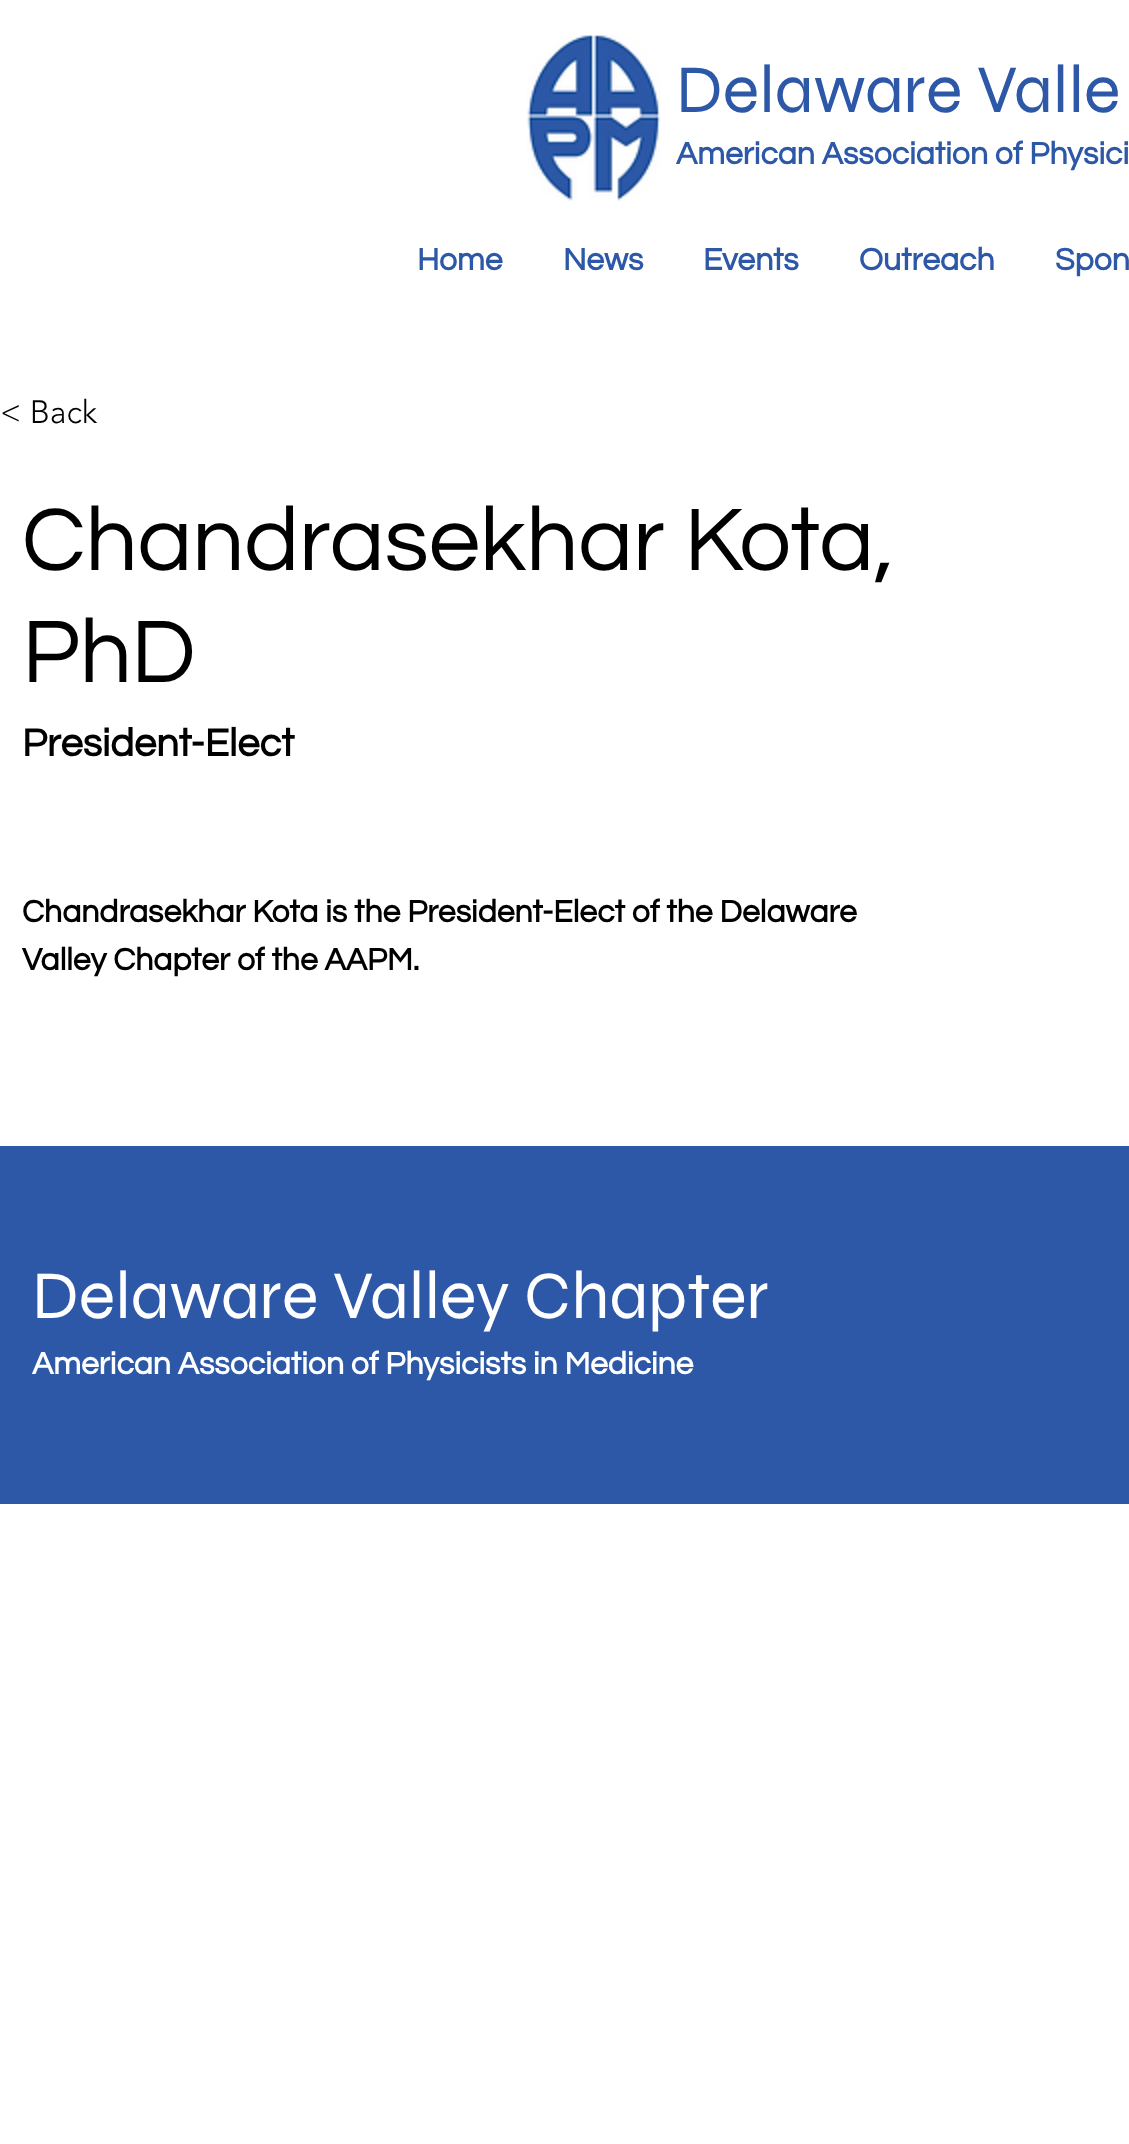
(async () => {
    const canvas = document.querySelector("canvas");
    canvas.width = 1129;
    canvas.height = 2144;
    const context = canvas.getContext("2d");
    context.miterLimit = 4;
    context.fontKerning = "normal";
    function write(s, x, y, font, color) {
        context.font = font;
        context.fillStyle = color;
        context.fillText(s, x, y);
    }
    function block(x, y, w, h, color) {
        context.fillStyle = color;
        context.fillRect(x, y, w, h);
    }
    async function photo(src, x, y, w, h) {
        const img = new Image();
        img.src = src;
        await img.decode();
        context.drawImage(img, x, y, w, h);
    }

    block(0, 0, 1129, 2144, "rgb(255, 255, 255)");
    await photo("media/1.png", 527, 34, 134, 167);
    write("Delaware Valle", 676, 112, "68px Syne", "rgb(44, 88, 167)");
    write("American Association of Physici", 676, 164, "bold 32px Questrial", "rgb(44, 88, 167)");
    write("Home", 417, 270, "bold 32px Questrial", "rgb(44, 88, 167)");
    write("News", 563, 270, "bold 32px Questrial", "rgb(44, 88, 167)");
    write("Events", 703, 270, "bold 32px Questrial", "rgb(44, 88, 167)");
    write("Outreach", 859, 270, "bold 32px Questrial", "rgb(44, 88, 167)");
    write("Spon", 1055, 270, "bold 32px Questrial", "rgb(44, 88, 167)");
    write("< Back", 0, 423, "300 32px 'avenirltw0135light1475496'", "rgb(0, 0, 0)");
    write("Chandrasekhar Kota,", 22, 570, "92px Questrial", "rgb(0, 0, 0)");
    write("PhD", 22, 682, "92px Questrial", "rgb(0, 0, 0)");
    write("President-Elect", 22, 756, "bold 40px Questrial", "rgb(0, 0, 0)");
    write("Chandrasekhar Kota is the President-Elect of the Delaware", 22, 922, "bold 32px Questrial", "rgb(0, 0, 0)");
    write("Valley Chapter of the AAPM.", 22, 970, "bold 32px Questrial", "rgb(0, 0, 0)");
    block(0, 1146, 1129, 358, "rgb(44, 88, 167)");
    write("Delaware Valley Chapter", 32, 1318, "68px Syne", "rgb(255, 255, 255)");
    write("American Association of Physicists in Medicine", 32, 1374, "bold 32px Questrial", "rgb(255, 255, 255)");
})();
